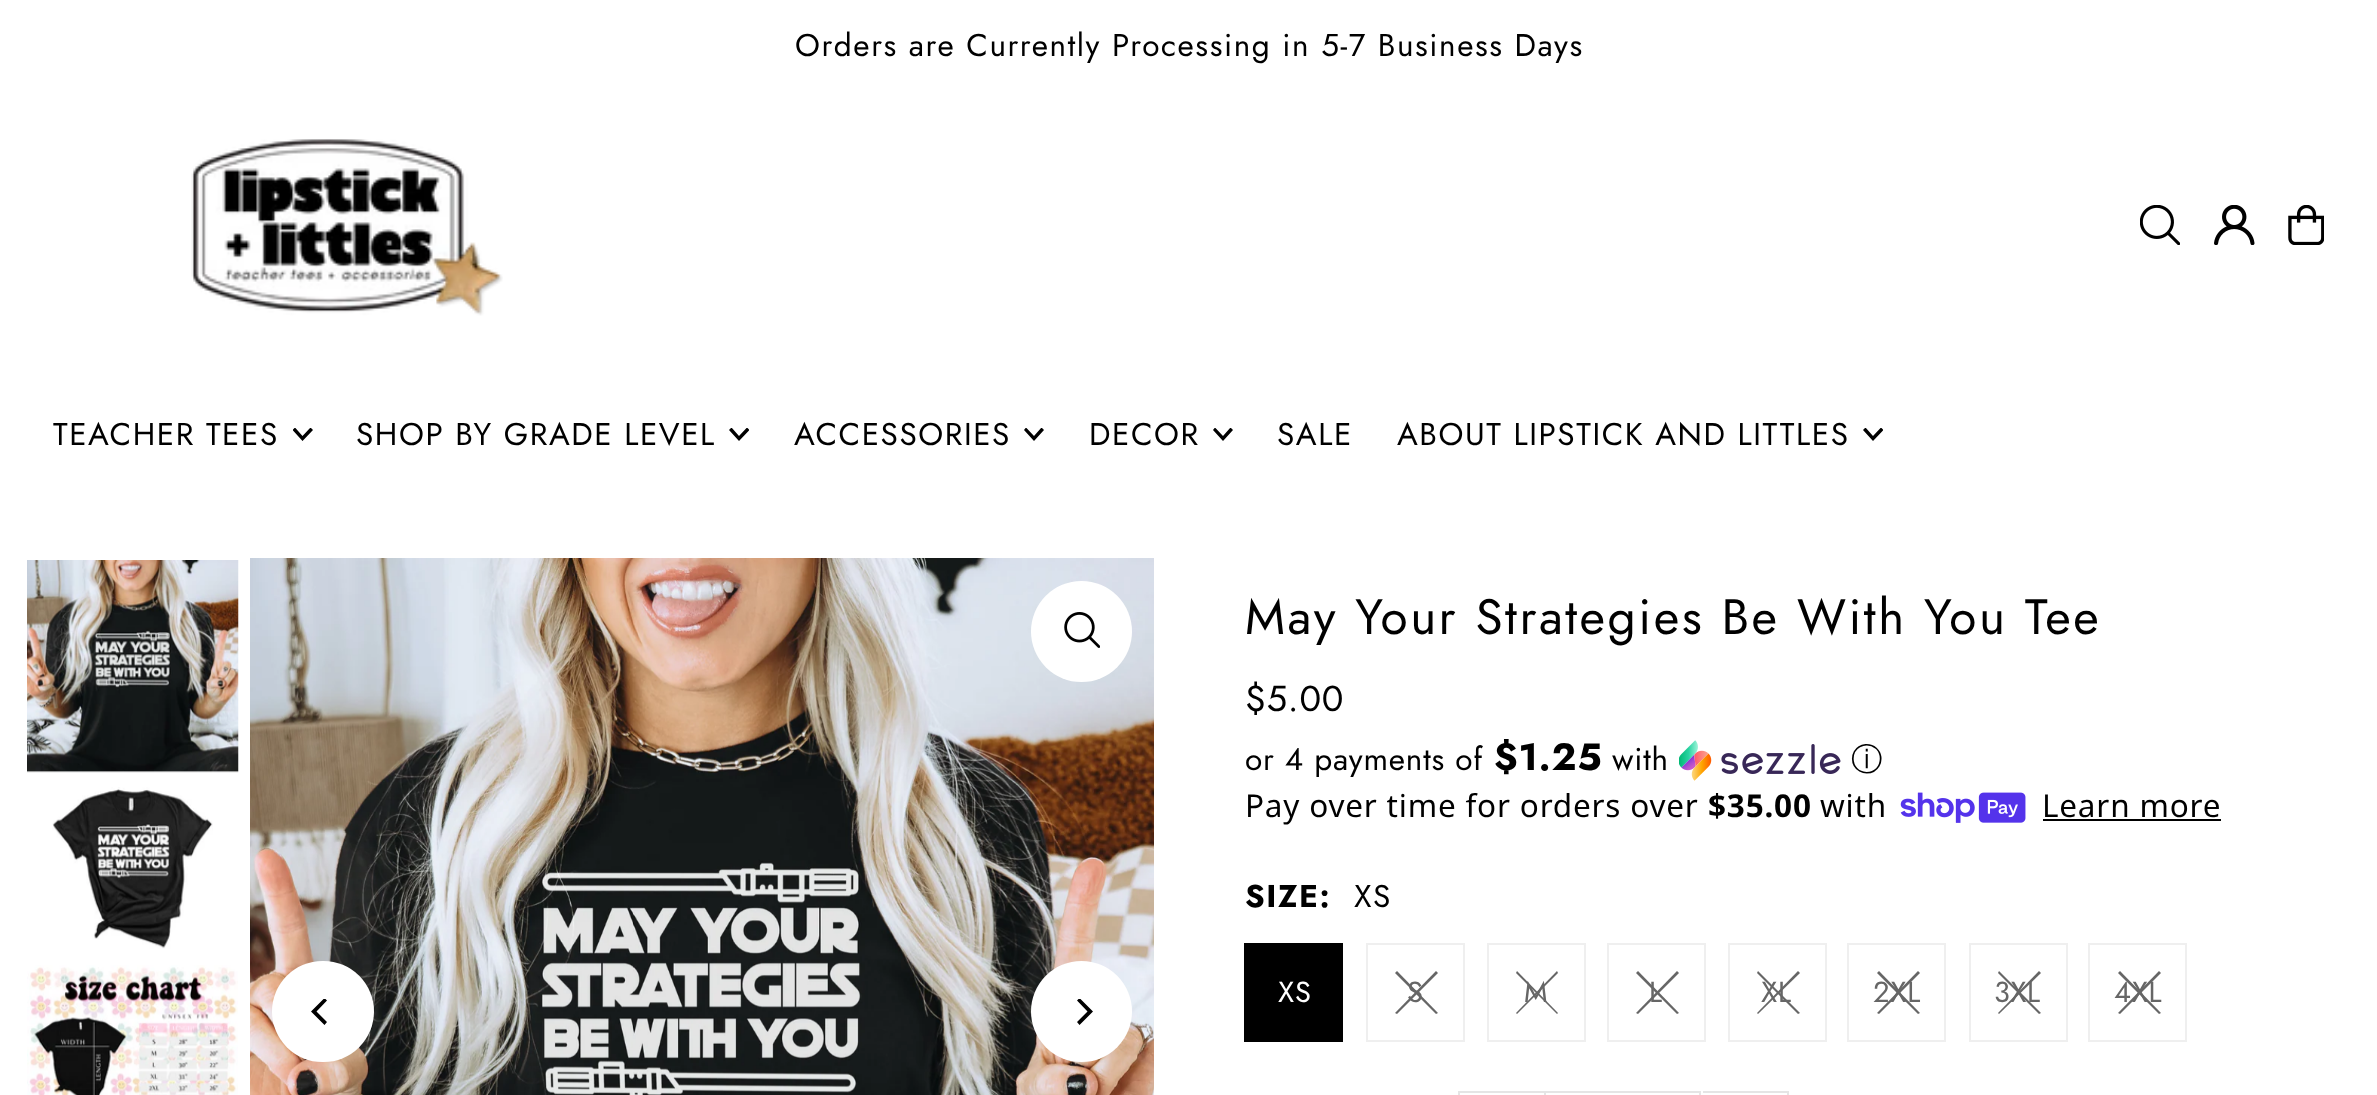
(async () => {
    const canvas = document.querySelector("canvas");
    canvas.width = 2377;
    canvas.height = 1095;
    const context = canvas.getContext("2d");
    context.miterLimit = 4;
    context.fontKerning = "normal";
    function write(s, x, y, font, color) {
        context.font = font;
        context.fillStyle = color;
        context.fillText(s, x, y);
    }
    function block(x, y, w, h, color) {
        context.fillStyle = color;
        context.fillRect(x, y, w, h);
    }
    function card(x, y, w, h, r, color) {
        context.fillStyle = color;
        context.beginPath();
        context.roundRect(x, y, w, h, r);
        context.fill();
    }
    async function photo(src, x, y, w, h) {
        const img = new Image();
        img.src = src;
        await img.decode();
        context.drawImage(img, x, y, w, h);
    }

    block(0, 0, 2377, 1095, "rgb(255, 255, 255)");
    context.letterSpacing = "1.57px";
    write("Orders are Currently Processing in 5-7 Business Days", 795, 56, "31.5px Jost", "rgb(0, 0, 0)");
    await photo("media/1.png", 191, 139, 312, 177);
    await photo("media/2.png", 2140, 205, 40, 40);
    await photo("media/3.png", 2214, 205, 41, 40);
    await photo("media/4.png", 2288, 205, 36, 40);
    write("TEACHER TEES", 53, 445, "31.5px Jost", "rgb(0, 0, 0)");
    context.save();
    context.beginPath();
    context.rect(293, 428, 20, 13);
    context.clip();
    context.beginPath();
    context.moveTo(310.5, 427.5);
    context.lineTo(302.5, 436);
    context.lineTo(295, 427.5);
    context.lineTo(292.5, 430);
    context.lineTo(302.5, 441);
    context.lineTo(313, 430);
    context.closePath();
    context.fill();
    context.restore();
    write("SHOP BY GRADE LEVEL", 356, 445, "31.5px Jost", "rgb(0, 0, 0)");
    context.save();
    context.beginPath();
    context.rect(729, 428, 20, 13);
    context.clip();
    context.beginPath();
    context.moveTo(747, 427.5);
    context.lineTo(739, 436);
    context.lineTo(731.5, 427.5);
    context.lineTo(729, 430);
    context.lineTo(739, 441);
    context.lineTo(749.5, 430);
    context.closePath();
    context.fill();
    context.restore();
    write("ACCESSORIES", 794, 445, "31.5px Jost", "rgb(0, 0, 0)");
    context.save();
    context.beginPath();
    context.rect(1024, 428, 20, 13);
    context.clip();
    context.beginPath();
    context.moveTo(1041.5, 427.5);
    context.lineTo(1034, 436);
    context.lineTo(1026, 427.5);
    context.lineTo(1024, 430);
    context.lineTo(1034, 441);
    context.lineTo(1044, 430);
    context.closePath();
    context.fill();
    context.restore();
    write("DECOR", 1089, 445, "31.5px Jost", "rgb(0, 0, 0)");
    context.save();
    context.beginPath();
    context.rect(1213, 428, 20, 13);
    context.clip();
    context.beginPath();
    context.moveTo(1230.5, 427.5);
    context.lineTo(1223, 436);
    context.lineTo(1215, 427.5);
    context.lineTo(1213, 430);
    context.lineTo(1223, 441);
    context.lineTo(1233, 430);
    context.closePath();
    context.fill();
    context.restore();
    write("SALE", 1277, 445, "31.5px Jost", "rgb(0, 0, 0)");
    write("ABOUT LIPSTICK AND LITTLES", 1397, 445, "31.5px Jost", "rgb(0, 0, 0)");
    context.save();
    context.beginPath();
    context.rect(1863, 428, 20, 13);
    context.clip();
    context.beginPath();
    context.moveTo(1881, 427.5);
    context.lineTo(1873, 436);
    context.lineTo(1865.5, 427.5);
    context.lineTo(1863, 430);
    context.lineTo(1873, 441);
    context.lineTo(1883.5, 430);
    context.closePath();
    context.fill();
    context.restore();
    await photo("media/5.png", 27, 560, 212, 213);
    await photo("media/6.png", 52, 787, 161, 162);
    await photo("media/7.png", 27, 965, 211, 130);
    await photo("media/8.png", 250, 558, 904, 537);
    context.fillStyle = "rgb(255, 255, 255)";
    context.beginPath();
    context.arc(1081.5, 631.5, 50.5, 0, Math.PI * 2);
    context.fill();
    await photo("media/9.png", 1064, 612, 36, 36);
    card(272, 961, 102, 101, 50.5, "rgb(255, 255, 255)");
    context.save();
    context.beginPath();
    context.rect(308, 999, 27, 27);
    context.clip();
    context.fillStyle = "rgb(0, 0, 0)";
    context.beginPath();
    context.moveTo(311, 1011.5);
    context.lineTo(324.5, 1025);
    context.lineTo(327, 1022);
    context.lineTo(316.5, 1011.5);
    context.lineTo(327, 1000.5);
    context.lineTo(324.5, 998);
    context.closePath();
    context.fill();
    context.restore();
    context.beginPath();
    context.arc(1081.5, 1011.5, 50.5, 0, Math.PI * 2);
    context.fill();
    context.save();
    context.beginPath();
    context.rect(1069, 999, 27, 27);
    context.clip();
    context.fillStyle = "rgb(0, 0, 0)";
    context.beginPath();
    context.moveTo(1093, 1011.5);
    context.lineTo(1079.5, 998);
    context.lineTo(1077, 1000.5);
    context.lineTo(1087.5, 1011.5);
    context.lineTo(1077, 1022);
    context.lineTo(1079.5, 1025);
    context.closePath();
    context.fill();
    context.restore();
    context.letterSpacing = "2.5px";
    write("May Your Strategies Be With You Tee", 1245, 634, "49.5px Jost", "rgb(0, 0, 0)");
    context.letterSpacing = "0.8px";
    write("$5.00", 1245, 711, "36px Jost", "rgb(0, 0, 0)");
    write("or 4 payments of", 1245, 770, "31.5px Jost", "rgb(0, 0, 0)");
    write("$1.25", 1494, 770, "bold 38px Jost", "rgb(0, 0, 0)");
    write("with", 1612, 770, "31.5px Jost", "rgb(0, 0, 0)");
    await photo("media/10.png", 1679, 740, 162, 41);
    write("ⓘ", 1851, 770, "500 31.5px WenQuanYi Zen Hei", "rgb(0, 0, 0)");
    write("Pay over time for orders over", 1245, 817, "31.5px Noto Sans", "rgb(0, 0, 0)");
    write("$35.00", 1708, 817, "bold 31.5px Noto Sans", "rgb(0, 0, 0)");
    write("with", 1820, 817, "31.5px Noto Sans", "rgb(0, 0, 0)");
    await photo("media/11.png", 1900, 792, 126, 31);
    write("Learn more", 2042, 817, "31.5px Noto Sans", "rgb(0, 0, 0)");
    block(2043, 819, 178, 2, "rgb(0, 0, 0)");
    context.letterSpacing = "1.57px";
    write("SIZE:", 1245, 907, "bold 31.5px Jost", "rgb(0, 0, 0)");
    write("XS", 1354, 907, "31.5px Jost", "rgb(0, 0, 0)");
    block(1244, 943, 99, 99, "rgb(0, 0, 0)");
    context.letterSpacing = "0.8px";
    write("XS", 1278, 1002, "29px Jost", "rgb(255, 255, 255)");
    context.strokeStyle = "rgb(239, 239, 239)";
    context.lineWidth = 2;
    context.strokeRect(1367, 944, 97, 97);
    context.fillStyle = "rgb(102, 102, 102)";
    context.beginPath();
    context.moveTo(1436, 971);
    context.lineTo(1438, 973);
    context.lineTo(1397, 1014);
    context.lineTo(1395, 1013);
    context.closePath();
    context.fill();
    context.beginPath();
    context.moveTo(1438, 1013);
    context.lineTo(1436, 1014);
    context.lineTo(1395, 973);
    context.lineTo(1397, 971);
    context.closePath();
    context.fill();
    write("S", 1407, 1002, "29px Jost", "rgb(102, 102, 102)");
    context.strokeRect(1488, 944, 97, 97);
    context.beginPath();
    context.moveTo(1557, 971);
    context.lineTo(1558, 973);
    context.lineTo(1517, 1014);
    context.lineTo(1516, 1013);
    context.closePath();
    context.fill();
    context.beginPath();
    context.moveTo(1558, 1013);
    context.lineTo(1557, 1014);
    context.lineTo(1516, 973);
    context.lineTo(1517, 971);
    context.closePath();
    context.fill();
    write("M", 1524, 1002, "29px Jost", "rgb(102, 102, 102)");
    context.strokeRect(1608, 944, 97, 97);
    context.beginPath();
    context.moveTo(1677, 971);
    context.lineTo(1679, 973);
    context.lineTo(1638, 1014);
    context.lineTo(1636, 1013);
    context.closePath();
    context.fill();
    context.beginPath();
    context.moveTo(1679, 1013);
    context.lineTo(1677, 1014);
    context.lineTo(1636, 973);
    context.lineTo(1638, 971);
    context.closePath();
    context.fill();
    write("L", 1649, 1002, "29px Jost", "rgb(102, 102, 102)");
    context.strokeRect(1729, 944, 97, 97);
    context.beginPath();
    context.moveTo(1798, 971);
    context.lineTo(1800, 973);
    context.lineTo(1758, 1014);
    context.lineTo(1757, 1013);
    context.closePath();
    context.fill();
    context.beginPath();
    context.moveTo(1800, 1013);
    context.lineTo(1798, 1014);
    context.lineTo(1757, 973);
    context.lineTo(1758, 971);
    context.closePath();
    context.fill();
    write("XL", 1761, 1002, "29px Jost", "rgb(102, 102, 102)");
    context.strokeRect(1848, 944, 97, 97);
    context.beginPath();
    context.moveTo(1918, 971);
    context.lineTo(1920, 973);
    context.lineTo(1879, 1014);
    context.lineTo(1877, 1013);
    context.closePath();
    context.fill();
    context.beginPath();
    context.moveTo(1920, 1013);
    context.lineTo(1918, 1014);
    context.lineTo(1877, 973);
    context.lineTo(1879, 971);
    context.closePath();
    context.fill();
    write("2XL", 1873, 1002, "29px Jost", "rgb(102, 102, 102)");
    context.strokeRect(1970, 944, 97, 97);
    context.beginPath();
    context.moveTo(2039, 971);
    context.lineTo(2041, 973);
    context.lineTo(1999, 1014);
    context.lineTo(1998, 1013);
    context.closePath();
    context.fill();
    context.beginPath();
    context.moveTo(2041, 1013);
    context.lineTo(2039, 1014);
    context.lineTo(1998, 973);
    context.lineTo(1999, 971);
    context.closePath();
    context.fill();
    write("3XL", 1994, 1002, "29px Jost", "rgb(102, 102, 102)");
    context.strokeRect(2089, 944, 97, 97);
    context.beginPath();
    context.moveTo(2159, 971);
    context.lineTo(2161, 973);
    context.lineTo(2120, 1014);
    context.lineTo(2118, 1013);
    context.closePath();
    context.fill();
    context.beginPath();
    context.moveTo(2161, 1013);
    context.lineTo(2159, 1014);
    context.lineTo(2118, 973);
    context.lineTo(2120, 971);
    context.closePath();
    context.fill();
    write("4XL", 2114, 1002, "29px Jost", "rgb(102, 102, 102)");
    block(1458, 1091, 86, 2, "rgb(229, 229, 229)");
    block(1458, 1091, 2, 4, "rgb(229, 229, 229)");
    context.strokeStyle = "rgb(229, 229, 229)";
    context.strokeRect(1545, 1092, 155, 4);
    block(1703, 1091, 86, 2, "rgb(229, 229, 229)");
    block(1787, 1091, 2, 4, "rgb(229, 229, 229)");
})();
